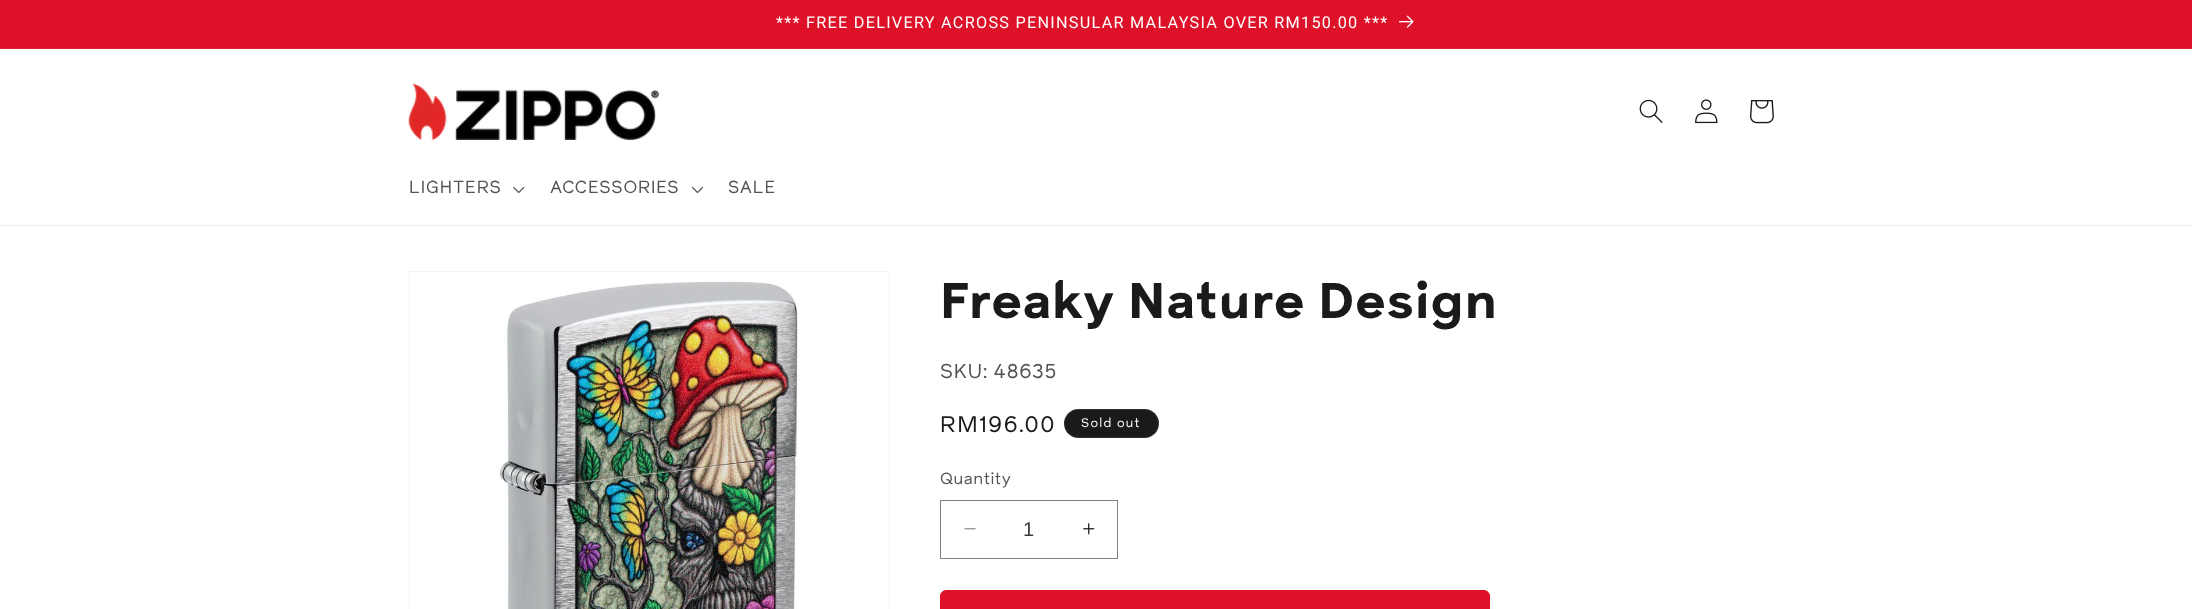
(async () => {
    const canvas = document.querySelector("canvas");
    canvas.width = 2192;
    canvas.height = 609;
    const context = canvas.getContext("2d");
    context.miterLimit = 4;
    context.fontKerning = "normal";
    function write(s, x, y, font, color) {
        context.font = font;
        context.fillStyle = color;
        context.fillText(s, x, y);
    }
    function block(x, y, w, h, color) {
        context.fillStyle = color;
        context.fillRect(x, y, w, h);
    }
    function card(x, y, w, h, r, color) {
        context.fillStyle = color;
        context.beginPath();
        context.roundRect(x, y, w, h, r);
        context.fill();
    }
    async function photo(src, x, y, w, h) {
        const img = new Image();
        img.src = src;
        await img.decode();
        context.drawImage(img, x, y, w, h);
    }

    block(0, 0, 2192, 609, "rgb(255, 255, 255)");
    block(0, 0, 2192, 48, "rgb(221, 18, 41)");
    block(0, 48, 2192, 1, "rgb(224, 37, 58)");
    context.letterSpacing = "1.25px";
    write("*** FREE DELIVERY ACROSS PENINSULAR MALAYSIA OVER RM150.00 ***", 776, 28, "16.25px Roboto", "rgb(255, 255, 255)");
    await photo("media/1.png", 1399, 15, 15, 13);
    block(0, 225, 2192, 1, "rgb(237, 237, 237)");
    await photo("media/2.png", 408, 83, 251, 57);
    await photo("media/3.png", 1639, 99, 24, 24);
    await photo("media/4.png", 1695, 99, 23, 25);
    await photo("media/5.png", 1750, 100, 24, 24);
    context.letterSpacing = "0.75px";
    write("LIGHTERS", 409, 193, "17.5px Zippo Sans", "rgb(83, 84, 82)");
    await photo("media/6.png", 513, 186, 12, 8);
    write("ACCESSORIES", 550, 193, "17.5px Zippo Sans", "rgb(83, 84, 82)");
    await photo("media/7.png", 691, 186, 13, 8);
    write("SALE", 728, 193, "17.5px Zippo Sans", "rgb(83, 84, 82)");
    context.strokeStyle = "rgb(244, 244, 243)";
    context.strokeRect(409.5, 271.5, 480, 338);
    await photo("media/8.png", 499, 281, 300, 328);
    write("Freaky Nature Design", 940, 318, "bold 50px Zippo Sans", "rgb(26, 27, 24)");
    write("SKU: 48635", 940, 378, "20px Zippo Sans", "rgb(83, 84, 82)");
    context.letterSpacing = "1.5px";
    write("RM196.00", 940, 432, "22.5px Zippo Sans", "rgb(26, 27, 24)");
    card(1064, 409, 95, 29, 14.5, "rgb(26, 27, 24)");
    context.beginPath();
    context.roundRect(1064.5, 409.5, 94, 28, 14);
    context.strokeStyle = "rgba(255, 255, 255, 0.1)";
    context.stroke();
    context.letterSpacing = "1.25px";
    write("Sold out", 1081, 427, "12.5px Zippo Sans", "rgb(255, 255, 255)");
    context.letterSpacing = "0.5px";
    write("Quantity", 940, 484, "16.25px Zippo Sans", "rgb(83, 84, 82)");
    await photo("media/9.png", 964, 528, 12, 2);
    await photo("media/10.png", 1083, 523, 12, 12);
    context.strokeStyle = "rgb(129, 130, 128)";
    context.strokeRect(940.5, 500.5, 177, 58);
    context.letterSpacing = "0px";
    write("1", 1023, 536, "20px Liberation Sans", "rgb(60, 61, 59)");
    context.fillStyle = "rgb(221, 18, 41)";
    context.beginPath();
    context.roundRect(940.5, 590.5, 549, 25, 5.5);
    context.fill();
    context.strokeStyle = "rgb(221, 18, 41)";
    context.stroke();
})();
